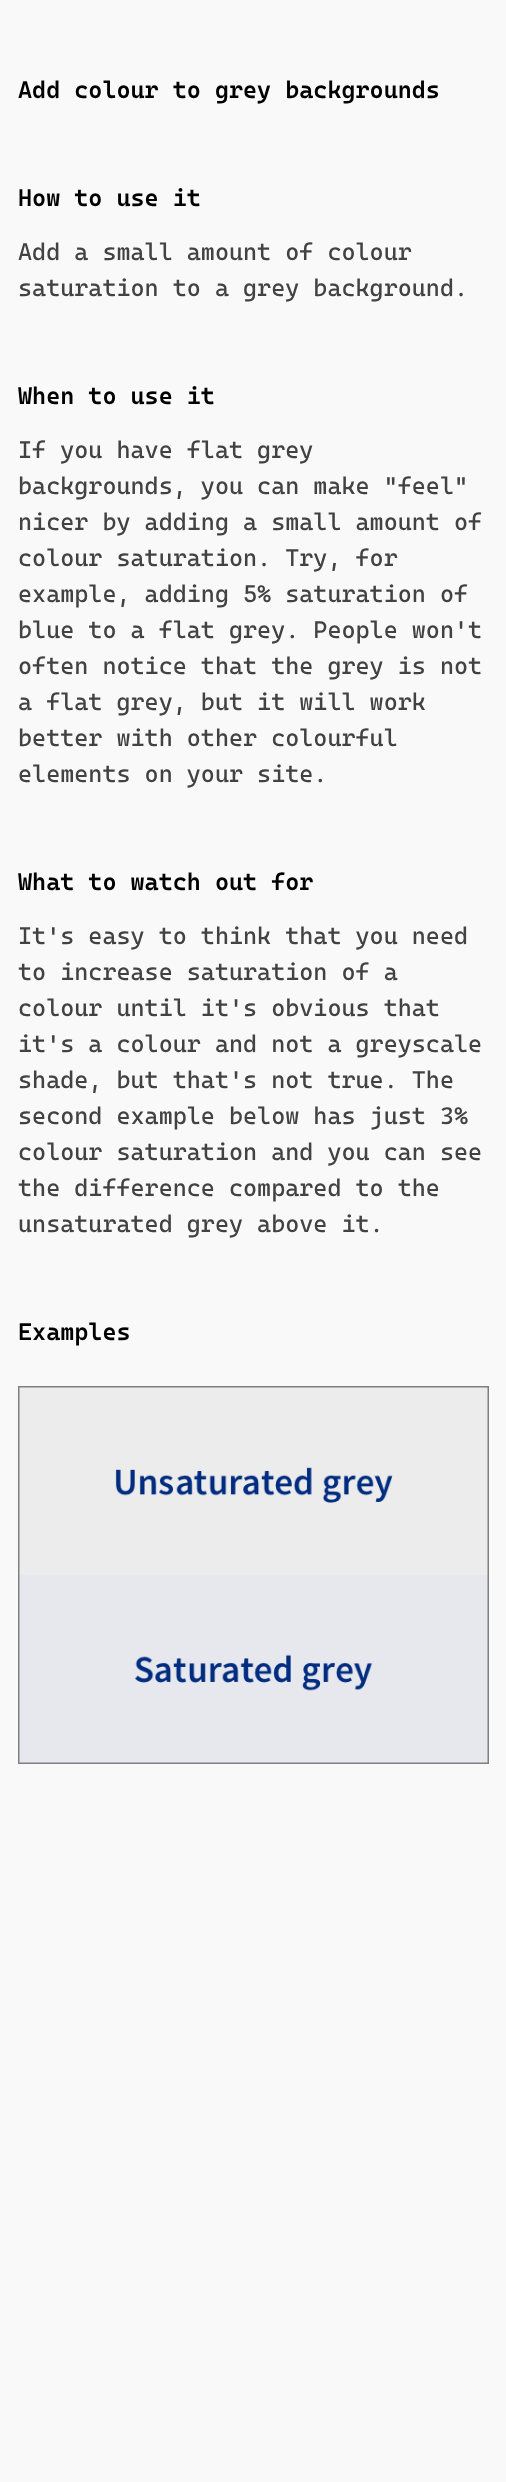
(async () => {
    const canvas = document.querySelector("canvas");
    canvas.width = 506;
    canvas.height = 2482;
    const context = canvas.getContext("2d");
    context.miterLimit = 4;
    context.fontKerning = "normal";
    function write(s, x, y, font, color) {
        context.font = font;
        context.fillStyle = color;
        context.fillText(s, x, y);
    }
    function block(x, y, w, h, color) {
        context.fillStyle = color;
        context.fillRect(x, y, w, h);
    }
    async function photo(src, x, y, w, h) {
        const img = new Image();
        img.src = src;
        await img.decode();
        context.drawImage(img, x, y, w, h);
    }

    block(0, 0, 506, 2482, "rgb(249, 249, 249)");
    write("Add colour to grey backgrounds", 18, 98, "600 24px Cascadia Code", "rgb(0, 0, 0)");
    write("How to use it", 18, 206, "600 24px Cascadia Code", "rgb(0, 0, 0)");
    write("Add a small amount of colour", 18, 260, "24px Cascadia Code", "rgb(66, 66, 66)");
    write("saturation to a grey background.", 18, 296, "24px Cascadia Code", "rgb(66, 66, 66)");
    write("When to use it", 18, 404, "600 24px Cascadia Code", "rgb(0, 0, 0)");
    write("If you have flat grey", 18, 458, "24px Cascadia Code", "rgb(66, 66, 66)");
    write("backgrounds, you can make \"feel\"", 18, 494, "24px Cascadia Code", "rgb(66, 66, 66)");
    write("nicer by adding a small amount of", 18, 530, "24px Cascadia Code", "rgb(66, 66, 66)");
    write("colour saturation. Try, for", 18, 566, "24px Cascadia Code", "rgb(66, 66, 66)");
    write("example, adding 5% saturation of", 18, 602, "24px Cascadia Code", "rgb(66, 66, 66)");
    write("blue to a flat grey. People won't", 18, 638, "24px Cascadia Code", "rgb(66, 66, 66)");
    write("often notice that the grey is not", 18, 674, "24px Cascadia Code", "rgb(66, 66, 66)");
    write("a flat grey, but it will work", 18, 710, "24px Cascadia Code", "rgb(66, 66, 66)");
    write("better with other colourful", 18, 746, "24px Cascadia Code", "rgb(66, 66, 66)");
    write("elements on your site.", 18, 782, "24px Cascadia Code", "rgb(66, 66, 66)");
    write("What to watch out for", 18, 890, "600 24px Cascadia Code", "rgb(0, 0, 0)");
    write("It's easy to think that you need", 18, 944, "24px Cascadia Code", "rgb(66, 66, 66)");
    write("to increase saturation of a", 18, 980, "24px Cascadia Code", "rgb(66, 66, 66)");
    write("colour until it's obvious that", 18, 1016, "24px Cascadia Code", "rgb(66, 66, 66)");
    write("it's a colour and not a greyscale", 18, 1052, "24px Cascadia Code", "rgb(66, 66, 66)");
    write("shade, but that's not true. The", 18, 1088, "24px Cascadia Code", "rgb(66, 66, 66)");
    write("second example below has just 3%", 18, 1124, "24px Cascadia Code", "rgb(66, 66, 66)");
    write("colour saturation and you can see", 18, 1160, "24px Cascadia Code", "rgb(66, 66, 66)");
    write("the difference compared to the", 18, 1196, "24px Cascadia Code", "rgb(66, 66, 66)");
    write("unsaturated grey above it.", 18, 1232, "24px Cascadia Code", "rgb(66, 66, 66)");
    write("Examples", 18, 1340, "600 24px Cascadia Code", "rgb(0, 0, 0)");
    block(18, 1386, 471, 378, "rgb(127, 127, 127)");
    await photo("media/1.png", 19, 1387, 469, 376);
})();
